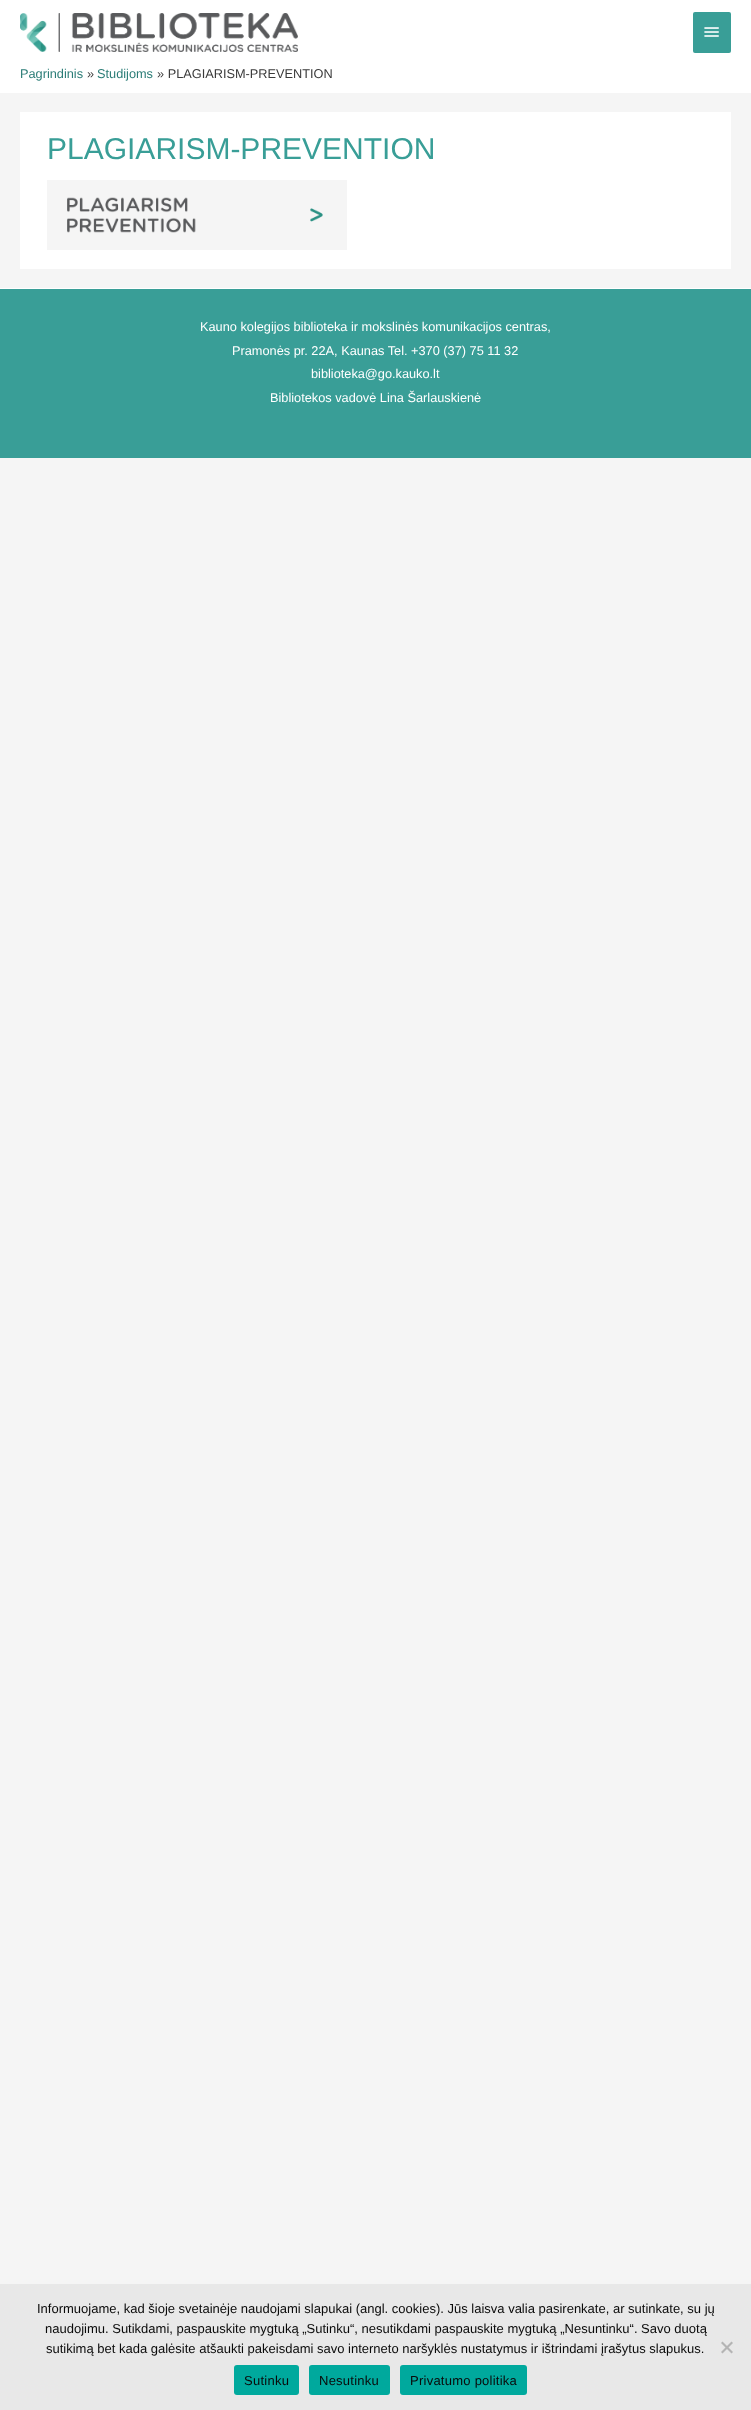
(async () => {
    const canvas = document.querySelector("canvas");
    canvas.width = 751;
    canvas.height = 2410;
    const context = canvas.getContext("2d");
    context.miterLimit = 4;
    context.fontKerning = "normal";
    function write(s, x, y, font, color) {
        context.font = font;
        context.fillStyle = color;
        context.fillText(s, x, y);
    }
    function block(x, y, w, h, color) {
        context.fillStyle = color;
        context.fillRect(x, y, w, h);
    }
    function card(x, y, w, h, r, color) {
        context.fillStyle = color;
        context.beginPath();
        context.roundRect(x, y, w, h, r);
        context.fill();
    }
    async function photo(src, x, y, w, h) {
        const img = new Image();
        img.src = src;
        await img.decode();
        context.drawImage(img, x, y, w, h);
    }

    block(0, 0, 751, 2410, "rgb(245, 245, 245)");
    block(0, 0, 751, 93, "rgb(255, 255, 255)");
    await photo("media/1.png", 20, 13, 278, 39);
    card(693, 12, 38, 41, 2, "rgb(57, 158, 151)");
    await photo("media/2.png", 704, 27, 15, 10);
    write("Pagrindinis", 20, 78, "12.75px Liberation Sans", "rgb(42, 124, 118)");
    write("»", 87, 78, "12.75px Liberation Sans", "rgb(58, 58, 58)");
    write("Studijoms", 97, 78, "12.75px Liberation Sans", "rgb(42, 124, 118)");
    write("» PLAGIARISM-PREVENTION", 157, 78, "12.75px Liberation Sans", "rgb(58, 58, 58)");
    block(20, 112, 711, 157, "rgb(255, 255, 255)");
    write("PLAGIARISM-PREVENTION", 47, 159, "30px Liberation Sans", "rgb(57, 158, 151)");
    await photo("media/3.png", 47, 180, 300, 70);
    block(0, 288, 751, 1, "rgb(255, 255, 255)");
    block(0, 289, 751, 169, "rgb(57, 158, 151)");
    write("Kauno kolegijos biblioteka ir mokslinės komunikacijos centras,", 200, 331, "12.75px Liberation Sans", "rgb(255, 255, 255)");
    write("Pramonės pr. 22A, Kaunas Tel. +370 (37) 75 11 32", 232, 355, "12.75px Liberation Sans", "rgb(255, 255, 255)");
    write("biblioteka@go.kauko.lt", 311, 378, "12.75px Liberation Sans", "rgb(255, 255, 255)");
    write("Bibliotekos vadovė Lina Šarlauskienė", 270, 402, "12.75px Liberation Sans", "rgb(255, 255, 255)");
    block(0, 2284, 751, 126, "rgb(232, 232, 232)");
    write("Informuojame, kad šioje svetainėje naudojami slapukai (angl. cookies). Jūs laisva valia pasirenkate, ar sutinkate, su jų", 37, 2313, "13px Liberation Sans", "rgb(10, 10, 10)");
    write("naudojimu. Sutikdami, paspauskite mygtuką „Sutinku“, nesutikdami paspauskite mygtuką „Nesuntinku“. Savo duotą", 45, 2333, "13px Liberation Sans", "rgb(10, 10, 10)");
    write("sutikimą bet kada galėsite atšaukti pakeisdami savo interneto naršyklės nustatymus ir ištrindami įrašytus slapukus.", 46, 2353, "13px Liberation Sans", "rgb(10, 10, 10)");
    context.fillStyle = "rgb(180, 180, 180)";
    context.beginPath();
    context.moveTo(731.5, 2341.5);
    context.lineTo(733, 2343);
    context.lineTo(722.5, 2353.5);
    context.lineTo(721, 2352);
    context.closePath();
    context.fill();
    context.beginPath();
    context.moveTo(721, 2343);
    context.lineTo(722.5, 2341.5);
    context.lineTo(733, 2352);
    context.lineTo(731.5, 2353.5);
    context.closePath();
    context.fill();
    card(234, 2365, 65, 30, 3, "rgb(0, 169, 157)");
    context.letterSpacing = "0.25px";
    write("Sutinku", 244, 2385, "13px Liberation Sans", "rgb(10, 10, 10)");
    card(309, 2365, 81, 30, 3, "rgb(0, 169, 157)");
    write("Nesutinku", 319, 2385, "13px Liberation Sans", "rgb(10, 10, 10)");
    card(400, 2365, 127, 30, 3, "rgb(0, 169, 157)");
    write("Privatumo politika", 410, 2385, "13px Liberation Sans", "rgb(10, 10, 10)");
})();
